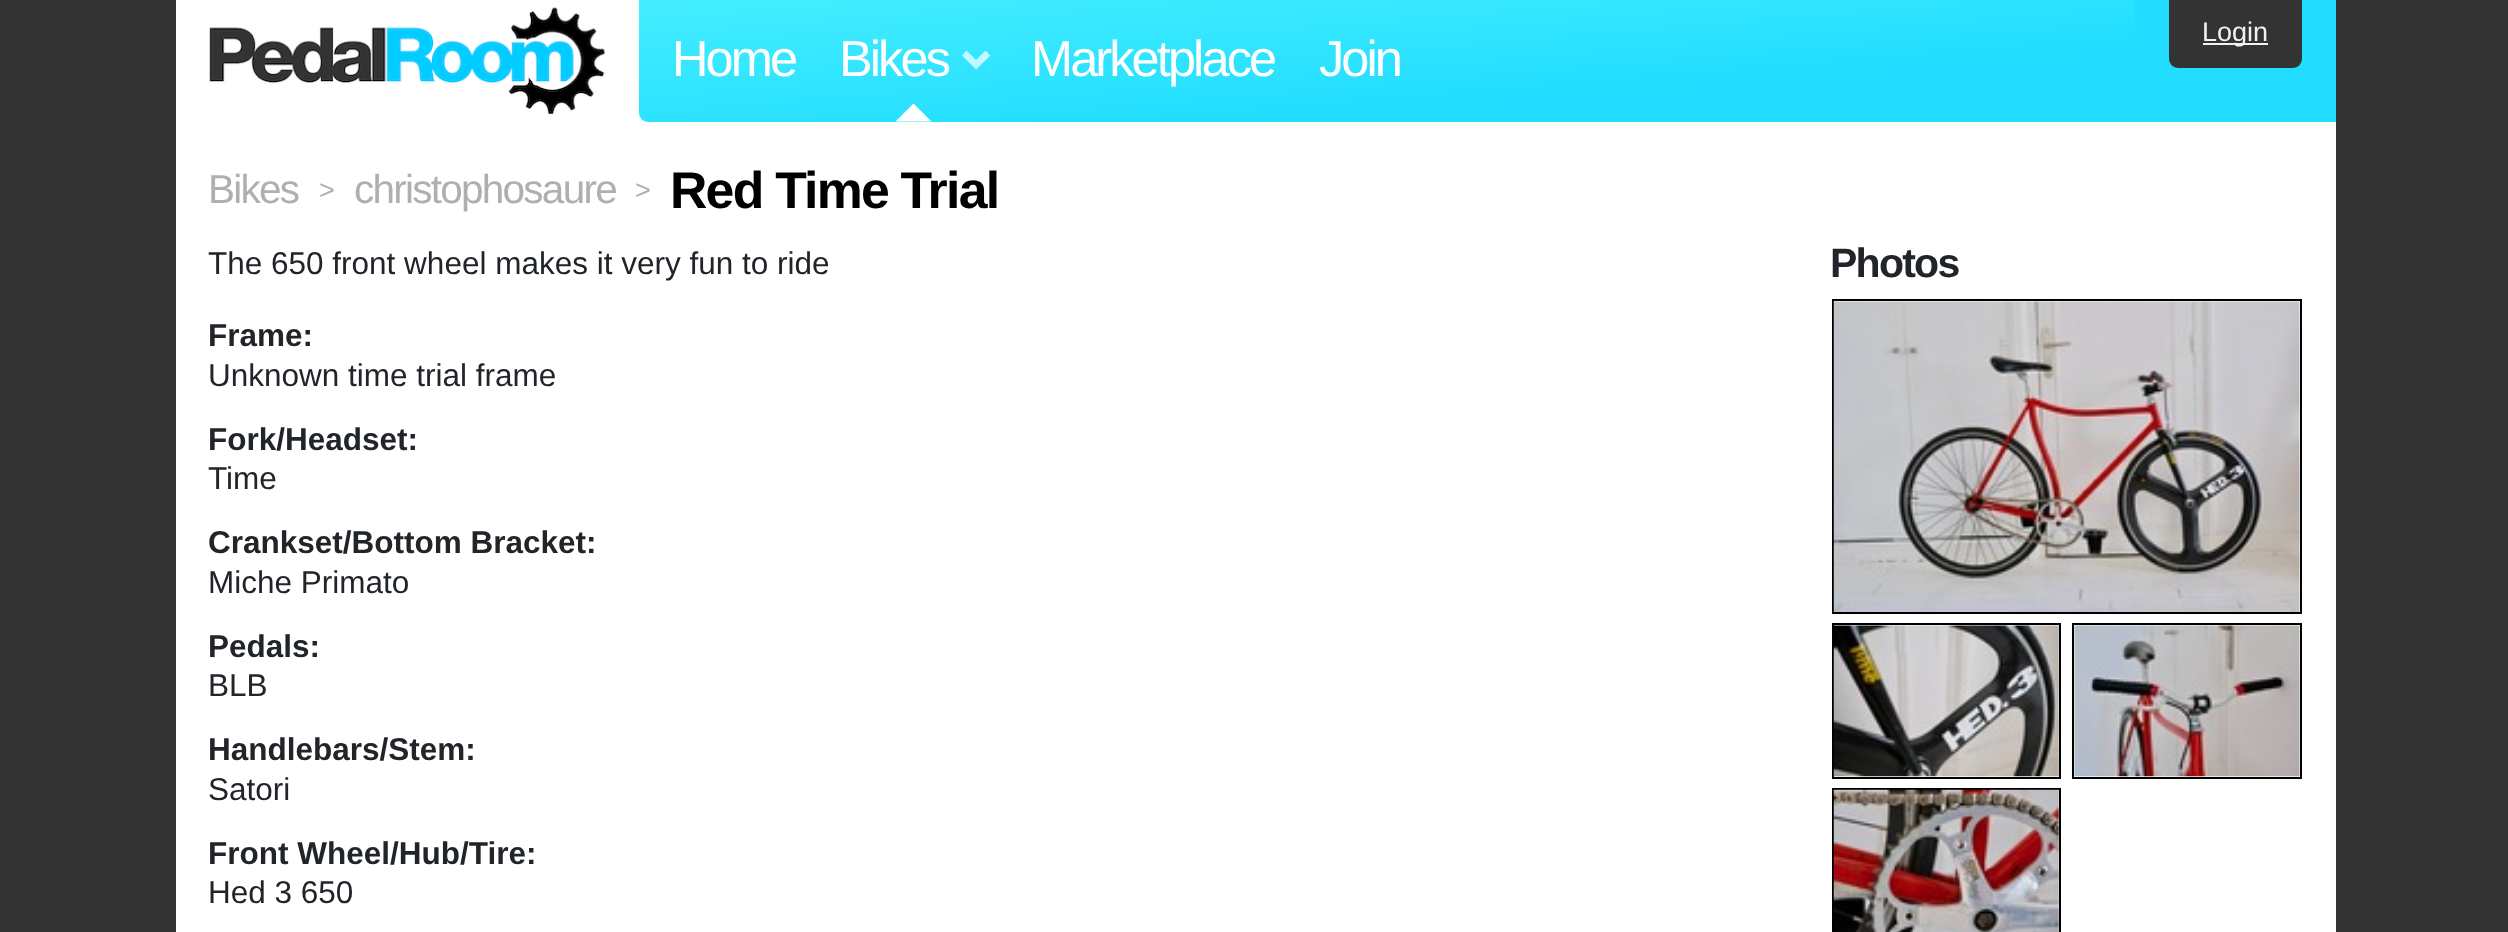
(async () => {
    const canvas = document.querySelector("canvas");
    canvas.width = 2508;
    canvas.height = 932;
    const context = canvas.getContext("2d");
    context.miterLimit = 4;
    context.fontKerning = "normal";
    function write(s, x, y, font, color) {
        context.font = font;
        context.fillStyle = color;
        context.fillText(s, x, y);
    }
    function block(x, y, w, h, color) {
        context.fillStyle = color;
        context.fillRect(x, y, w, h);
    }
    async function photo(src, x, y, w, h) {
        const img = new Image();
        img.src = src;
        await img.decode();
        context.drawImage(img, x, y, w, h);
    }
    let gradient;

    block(0, 0, 2508, 932, "rgb(51, 51, 51)");
    block(176, 0, 2160, 932, "rgb(255, 255, 255)");
    await photo("media/1.png", 209, 7, 397, 108);
    block(2135, 0, 201, 122, "rgb(34, 221, 255)");
    context.fillStyle = "rgb(51, 51, 51)";
    context.beginPath();
    context.roundRect(2169, 0, 133, 68, [0, 0, 9, 9]);
    context.fill();
    block(2203, 43, 65, 2, "rgb(242, 242, 242)");
    write("Login", 2202, 41, "27px Liberation Sans", "rgb(242, 242, 242)");
    gradient = context.createLinearGradient(1377, -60, 1397, 181);
    gradient.addColorStop(0, "rgb(68, 238, 255)");
    gradient.addColorStop(0.7, "rgb(34, 221, 255)");
    context.fillStyle = gradient;
    context.beginPath();
    context.roundRect(639, 0, 1496, 122, [0, 0, 0, 9]);
    context.fill();
    context.letterSpacing = "-2.9px";
    write("Home", 672, 76, "50.5px Liberation Sans", "rgb(255, 255, 255)");
    write("Bikes", 839, 76, "50.5px Liberation Sans", "rgb(255, 255, 255)");
    context.fillStyle = "rgba(255, 255, 255, 0.7)";
    context.beginPath();
    context.moveTo(990.5, 55.5);
    context.lineTo(976, 69.5);
    context.lineTo(976, 60);
    context.lineTo(985.5, 50.5);
    context.closePath();
    context.moveTo(976, 69.5);
    context.lineTo(962, 55.5);
    context.lineTo(966.5, 50.5);
    context.lineTo(976, 60);
    context.closePath();
    context.fill();
    context.fillStyle = "rgb(255, 255, 255)";
    context.beginPath();
    context.moveTo(931.5, 121.5);
    context.lineTo(895.5, 121.5);
    context.lineTo(913.5, 103.5);
    context.closePath();
    context.fill();
    write("Marketplace", 1031, 76, "50.5px Liberation Sans", "rgb(255, 255, 255)");
    write("Join", 1319, 76, "50.5px Liberation Sans", "rgb(255, 255, 255)");
    context.letterSpacing = "-1.75px";
    write("Bikes", 208, 203, "40.5px Liberation Sans", "rgb(175, 175, 175)");
    write(">", 319, 199, "27px Liberation Sans", "rgb(175, 175, 175)");
    write("christophosaure", 354, 203, "40.5px Liberation Sans", "rgb(175, 175, 175)");
    write(">", 635, 199, "27px Liberation Sans", "rgb(175, 175, 175)");
    write("Red Time Trial", 670, 208, "bold 51.75px Liberation Sans", "rgb(0, 0, 0)");
    context.letterSpacing = "0px";
    write("The 650 front wheel makes it very fun to ride", 208, 274, "31.5px Liberation Sans", "rgb(33, 37, 41)");
    write("Frame:", 208, 346, "bold 31.5px Liberation Sans", "rgb(33, 37, 41)");
    write("Unknown time trial frame", 208, 386, "31.5px Liberation Sans", "rgb(33, 37, 41)");
    write("Fork/Headset:", 208, 450, "bold 31.5px Liberation Sans", "rgb(33, 37, 41)");
    write("Time", 208, 489, "31.5px Liberation Sans", "rgb(33, 37, 41)");
    write("Crankset/Bottom Bracket:", 208, 553, "bold 31.5px Liberation Sans", "rgb(33, 37, 41)");
    write("Miche Primato", 208, 593, "31.5px Liberation Sans", "rgb(33, 37, 41)");
    write("Pedals:", 208, 657, "bold 31.5px Liberation Sans", "rgb(33, 37, 41)");
    write("BLB", 208, 696, "31.5px Liberation Sans", "rgb(33, 37, 41)");
    write("Handlebars/Stem:", 208, 760, "bold 31.5px Liberation Sans", "rgb(33, 37, 41)");
    write("Satori", 208, 800, "31.5px Liberation Sans", "rgb(33, 37, 41)");
    write("Front Wheel/Hub/Tire:", 208, 864, "bold 31.5px Liberation Sans", "rgb(33, 37, 41)");
    write("Hed 3 650", 208, 903, "31.5px Liberation Sans", "rgb(33, 37, 41)");
    context.letterSpacing = "-1.75px";
    write("Photos", 1830, 277, "bold 41px Liberation Sans", "rgb(33, 37, 41)");
    context.strokeStyle = "rgb(0, 0, 0)";
    context.lineWidth = 2;
    context.strokeRect(1833, 300, 468, 313);
    await photo("media/2.png", 1833, 301, 467, 311);
    context.strokeRect(1833, 624, 227, 154);
    context.strokeRect(2073, 624, 228, 154);
    await photo("media/3.png", 1833, 625, 226, 152);
    await photo("media/4.png", 2074, 625, 226, 152);
    context.strokeRect(1833, 789, 227, 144);
    await photo("media/5.png", 1833, 789, 226, 143);
})();
